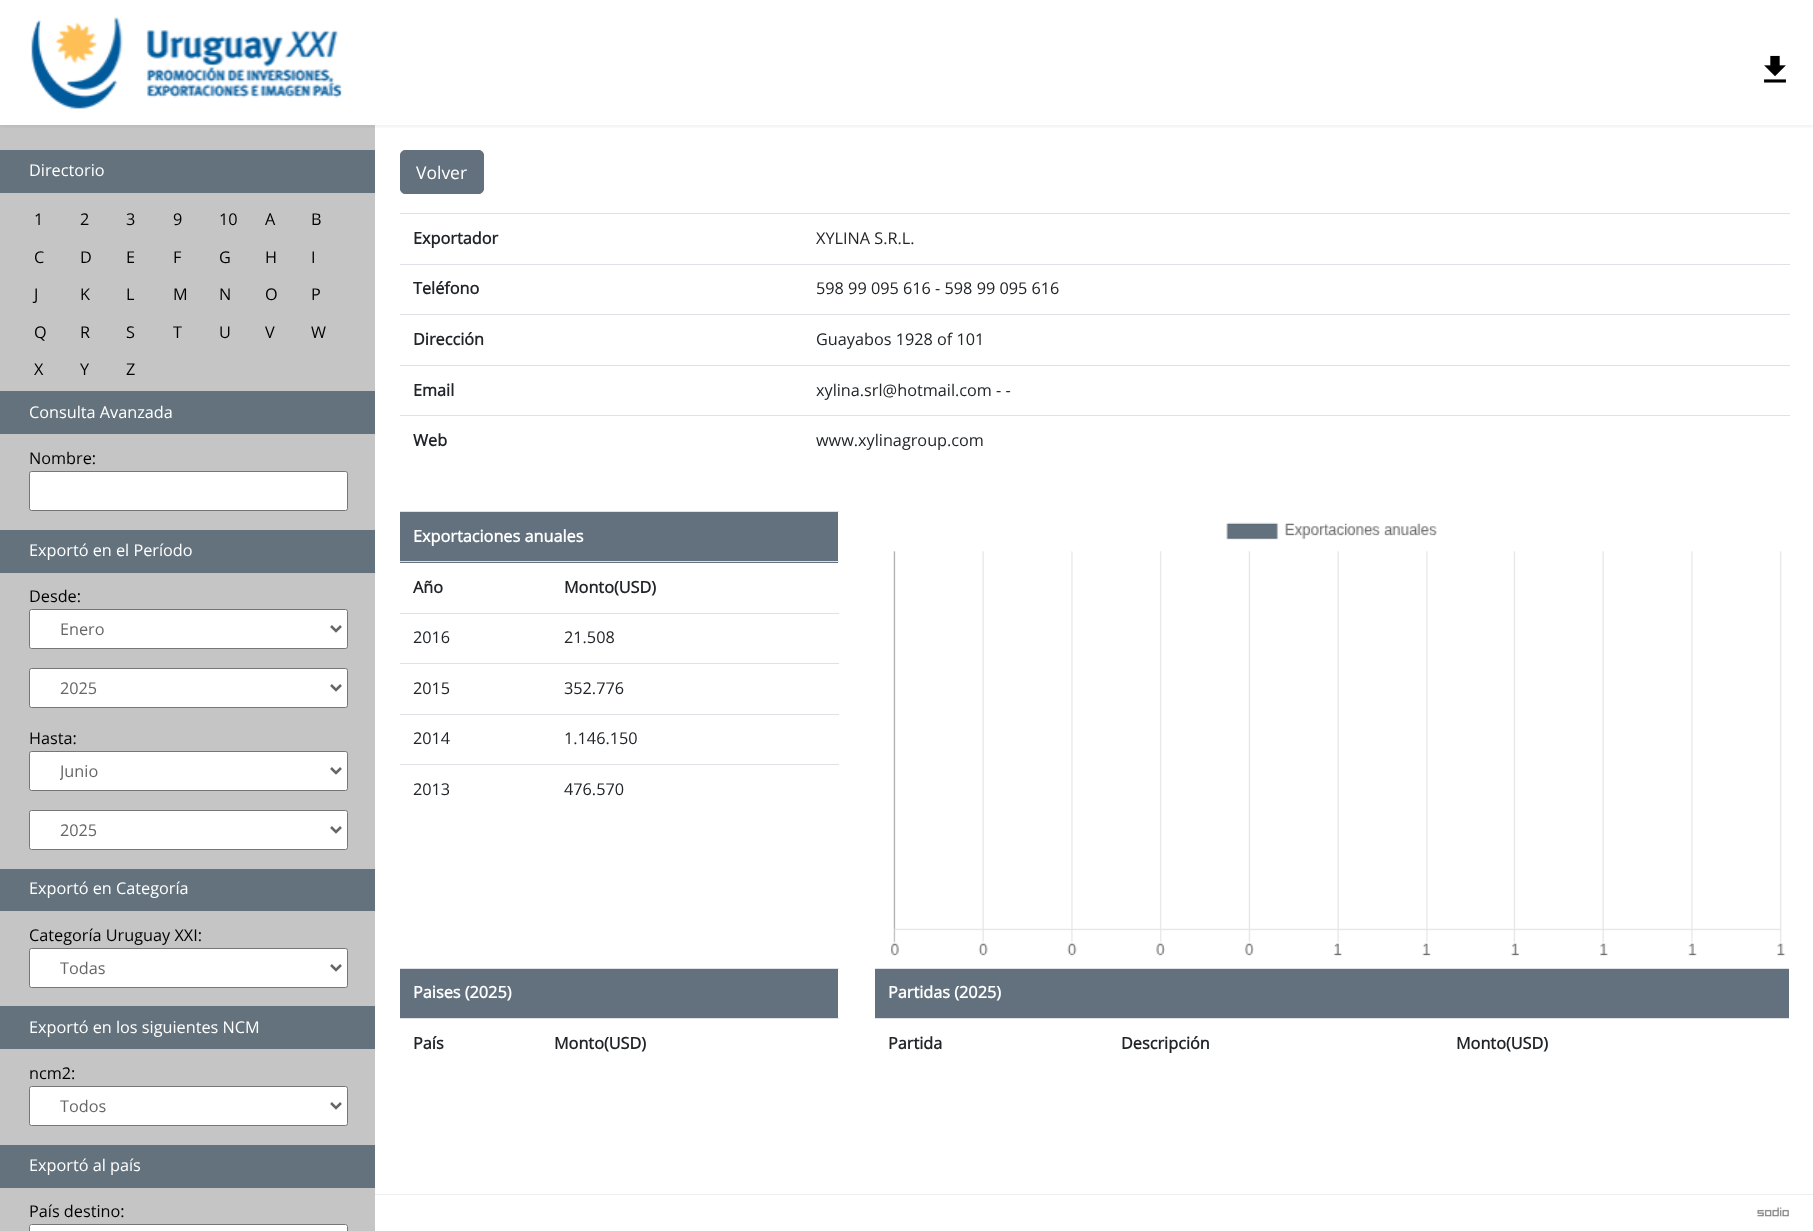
(async () => {
    const canvas = document.querySelector("canvas");
    canvas.width = 1813;
    canvas.height = 1231;
    const context = canvas.getContext("2d");
    context.miterLimit = 4;
    context.fontKerning = "normal";
    function write(s, x, y, font, color) {
        context.font = font;
        context.fillStyle = color;
        context.fillText(s, x, y);
    }
    function block(x, y, w, h, color) {
        context.fillStyle = color;
        context.fillRect(x, y, w, h);
    }
    async function photo(src, x, y, w, h) {
        const img = new Image();
        img.src = src;
        await img.decode();
        context.drawImage(img, x, y, w, h);
    }

    block(0, 0, 1813, 1231, "rgb(255, 255, 255)");
    block(0, 125, 375, 1106, "rgb(197, 197, 197)");
    context.save();
    context.beginPath();
    context.rect(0, 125, 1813, 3);
    context.clip();
    context.fillStyle = "rgba(50, 50, 50, 0.1)";
    context.filter = "blur(2.5px)";
    context.beginPath();
    context.rect(0, 1, 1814, 125);
    context.fill();
    context.filter = "none";
    context.restore();
    await photo("media/1.png", 31, 17, 311, 92);
    await photo("media/2.png", 1764, 55, 22, 28);
    block(0, 150, 375, 43, "rgb(99, 114, 125)");
    write("Directorio", 29, 176, "16.25px Open Sans", "rgb(255, 255, 255)");
    write("1", 34, 225, "16.25px Open Sans", "rgb(0, 0, 0)");
    write("2", 80, 225, "16.25px Open Sans", "rgb(0, 0, 0)");
    write("3", 126, 225, "16.25px Open Sans", "rgb(0, 0, 0)");
    write("9", 173, 225, "16.25px Open Sans", "rgb(0, 0, 0)");
    write("10", 219, 225, "16.25px Open Sans", "rgb(0, 0, 0)");
    write("A", 265, 225, "16.25px Open Sans", "rgb(0, 0, 0)");
    write("B", 311, 225, "16.25px Open Sans", "rgb(0, 0, 0)");
    write("C", 34, 263, "16.25px Open Sans", "rgb(0, 0, 0)");
    write("D", 80, 263, "16.25px Open Sans", "rgb(0, 0, 0)");
    write("E", 126, 263, "16.25px Open Sans", "rgb(0, 0, 0)");
    write("F", 173, 263, "16.25px Open Sans", "rgb(0, 0, 0)");
    write("G", 219, 263, "16.25px Open Sans", "rgb(0, 0, 0)");
    write("H", 265, 263, "16.25px Open Sans", "rgb(0, 0, 0)");
    write("I", 311, 263, "16.25px Open Sans", "rgb(0, 0, 0)");
    write("J", 34, 300, "16.25px Open Sans", "rgb(0, 0, 0)");
    write("K", 80, 300, "16.25px Open Sans", "rgb(0, 0, 0)");
    write("L", 126, 300, "16.25px Open Sans", "rgb(0, 0, 0)");
    write("M", 173, 300, "16.25px Open Sans", "rgb(0, 0, 0)");
    write("N", 219, 300, "16.25px Open Sans", "rgb(0, 0, 0)");
    write("O", 265, 300, "16.25px Open Sans", "rgb(0, 0, 0)");
    write("P", 311, 300, "16.25px Open Sans", "rgb(0, 0, 0)");
    write("Q", 34, 338, "16.25px Open Sans", "rgb(0, 0, 0)");
    write("R", 80, 338, "16.25px Open Sans", "rgb(0, 0, 0)");
    write("S", 126, 338, "16.25px Open Sans", "rgb(0, 0, 0)");
    write("T", 173, 338, "16.25px Open Sans", "rgb(0, 0, 0)");
    write("U", 219, 338, "16.25px Open Sans", "rgb(0, 0, 0)");
    write("V", 265, 338, "16.25px Open Sans", "rgb(0, 0, 0)");
    write("W", 311, 338, "16.25px Open Sans", "rgb(0, 0, 0)");
    write("X", 34, 375, "16.25px Open Sans", "rgb(0, 0, 0)");
    write("Y", 80, 375, "16.25px Open Sans", "rgb(0, 0, 0)");
    write("Z", 126, 375, "16.25px Open Sans", "rgb(0, 0, 0)");
    block(0, 391, 375, 43, "rgb(99, 114, 125)");
    write("Consulta Avanzada", 29, 418, "16.25px Open Sans", "rgb(255, 255, 255)");
    write("Nombre:", 29, 464, "16.25px Open Sans", "rgb(0, 0, 0)");
    context.fillStyle = "rgb(255, 255, 255)";
    context.beginPath();
    context.roundRect(29.5, 471.5, 318, 39, 2);
    context.fill();
    context.strokeStyle = "rgb(118, 118, 118)";
    context.stroke();
    block(0, 530, 375, 43, "rgb(99, 114, 125)");
    write("Exportó en el Período", 29, 556, "16.25px Open Sans", "rgb(255, 255, 255)");
    write("Desde:", 29, 602, "16.25px Open Sans", "rgb(0, 0, 0)");
    context.fillStyle = "rgb(255, 255, 255)";
    context.beginPath();
    context.roundRect(29.5, 609.5, 318, 39, 2);
    context.fill();
    context.stroke();
    context.beginPath();
    context.moveTo(331, 626);
    context.lineTo(336, 631);
    context.lineTo(341, 626);
    context.strokeStyle = "rgb(102, 102, 102)";
    context.lineWidth = 2.5;
    context.stroke();
    write("Enero", 60, 635, "16.25px Open Sans", "rgb(102, 102, 102)");
    context.fillStyle = "rgb(255, 255, 255)";
    context.beginPath();
    context.roundRect(29.5, 668.5, 318, 39, 2);
    context.fill();
    context.strokeStyle = "rgb(118, 118, 118)";
    context.lineWidth = 1;
    context.stroke();
    context.beginPath();
    context.moveTo(331, 685);
    context.lineTo(336, 690);
    context.lineTo(341, 685);
    context.strokeStyle = "rgb(102, 102, 102)";
    context.lineWidth = 2.5;
    context.stroke();
    write("2025", 60, 694, "16.25px Open Sans", "rgb(102, 102, 102)");
    write("Hasta:", 29, 744, "16.25px Open Sans", "rgb(0, 0, 0)");
    context.fillStyle = "rgb(255, 255, 255)";
    context.beginPath();
    context.roundRect(29.5, 751.5, 318, 39, 2);
    context.fill();
    context.strokeStyle = "rgb(118, 118, 118)";
    context.lineWidth = 1;
    context.stroke();
    context.beginPath();
    context.moveTo(331, 768);
    context.lineTo(336, 773);
    context.lineTo(341, 768);
    context.strokeStyle = "rgb(102, 102, 102)";
    context.lineWidth = 2.5;
    context.stroke();
    context.save();
    context.beginPath();
    context.rect(60, 759, 241, 25);
    context.clip();
    write("Junio", 60, 777, "16.25px Open Sans", "rgb(102, 102, 102)");
    context.restore();
    context.beginPath();
    context.roundRect(29.5, 810.5, 318, 39, 2);
    context.fill();
    context.strokeStyle = "rgb(118, 118, 118)";
    context.lineWidth = 1;
    context.stroke();
    context.beginPath();
    context.moveTo(331, 827);
    context.lineTo(336, 832);
    context.lineTo(341, 827);
    context.strokeStyle = "rgb(102, 102, 102)";
    context.lineWidth = 2.5;
    context.stroke();
    write("2025", 60, 836, "16.25px Open Sans", "rgb(102, 102, 102)");
    block(0, 869, 375, 42, "rgb(99, 114, 125)");
    write("Exportó en Categoría", 29, 894, "16.25px Open Sans", "rgb(255, 255, 255)");
    write("Categoría Uruguay XXI:", 29, 941, "16.25px Open Sans", "rgb(0, 0, 0)");
    context.fillStyle = "rgb(255, 255, 255)";
    context.beginPath();
    context.roundRect(29.5, 948.5, 318, 39, 2);
    context.fill();
    context.strokeStyle = "rgb(118, 118, 118)";
    context.lineWidth = 1;
    context.stroke();
    context.beginPath();
    context.moveTo(331, 965);
    context.lineTo(336, 970);
    context.lineTo(341, 965);
    context.strokeStyle = "rgb(102, 102, 102)";
    context.lineWidth = 2.5;
    context.stroke();
    write("Todas", 60, 974, "16.25px Open Sans", "rgb(102, 102, 102)");
    block(0, 1006, 375, 43, "rgb(99, 114, 125)");
    write("Exportó en los siguientes NCM", 29, 1033, "16.25px Open Sans", "rgb(255, 255, 255)");
    write("ncm2:", 29, 1079, "16.25px Open Sans", "rgb(0, 0, 0)");
    context.fillStyle = "rgb(255, 255, 255)";
    context.beginPath();
    context.roundRect(29.5, 1086.5, 318, 39, 2);
    context.fill();
    context.strokeStyle = "rgb(118, 118, 118)";
    context.lineWidth = 1;
    context.stroke();
    context.beginPath();
    context.moveTo(331, 1103);
    context.lineTo(336, 1108);
    context.lineTo(341, 1103);
    context.strokeStyle = "rgb(102, 102, 102)";
    context.lineWidth = 2.5;
    context.stroke();
    write("Todos", 60, 1112, "16.25px Open Sans", "rgb(102, 102, 102)");
    block(0, 1145, 375, 43, "rgb(99, 114, 125)");
    write("Exportó al país", 29, 1171, "16.25px Open Sans", "rgb(255, 255, 255)");
    write("País destino:", 29, 1217, "16.25px Open Sans", "rgb(0, 0, 0)");
    context.fillStyle = "rgb(255, 255, 255)";
    context.beginPath();
    context.roundRect(29, 1224, 319, 7, [2.5, 2.5, 0, 0]);
    context.fill();
    context.beginPath();
    context.roundRect(29.5, 1224.5, 318, 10, 2);
    context.strokeStyle = "rgb(118, 118, 118)";
    context.lineWidth = 1;
    context.stroke();
    context.fillStyle = "rgb(98, 113, 125)";
    context.beginPath();
    context.roundRect(400.5, 150.5, 83, 43, 4.5);
    context.fill();
    context.strokeStyle = "rgb(98, 113, 125)";
    context.stroke();
    write("Volver", 416, 179, "17.5px Open Sans", "rgb(255, 255, 255)");
    write("Exportador", 413, 244, "bold 16.25px Open Sans", "rgb(33, 37, 41)");
    block(400, 213, 1390, 1, "rgb(222, 226, 230)");
    write("XYLINA S.R.L.", 816, 244, "16.25px Open Sans", "rgb(33, 37, 41)");
    write("Teléfono", 413, 294, "bold 16.25px Open Sans", "rgb(33, 37, 41)");
    block(400, 264, 1390, 1, "rgb(222, 226, 230)");
    write("598 99 095 616 - 598 99 095 616", 816, 294, "16.25px Open Sans", "rgb(33, 37, 41)");
    write("Dirección", 413, 345, "bold 16.25px Open Sans", "rgb(33, 37, 41)");
    block(400, 314, 1390, 1, "rgb(222, 226, 230)");
    write("Guayabos 1928 of 101", 816, 345, "16.25px Open Sans", "rgb(33, 37, 41)");
    write("Email", 413, 396, "bold 16.25px Open Sans", "rgb(33, 37, 41)");
    block(400, 365, 1390, 1, "rgb(222, 226, 230)");
    write("xylina.srl@hotmail.com - -", 816, 396, "16.25px Open Sans", "rgb(33, 37, 41)");
    write("Web", 413, 446, "bold 16.25px Open Sans", "rgb(33, 37, 41)");
    block(400, 415, 1390, 1, "rgb(222, 226, 230)");
    write("www.xylinagroup.com", 816, 446, "16.25px Open Sans", "rgb(33, 37, 41)");
    block(400, 512, 438, 51, "rgb(98, 113, 125)");
    block(400, 511, 439, 1, "rgb(222, 226, 230)");
    write("Exportaciones anuales", 413, 542, "bold 16.25px Open Sans", "rgb(255, 255, 255)");
    write("Año", 413, 593, "bold 16.25px Open Sans", "rgb(33, 37, 41)");
    block(400, 561, 439, 1, "rgb(222, 226, 230)");
    write("Monto(USD)", 564, 593, "bold 16.25px Open Sans", "rgb(33, 37, 41)");
    write("2016", 413, 643, "16.25px Open Sans", "rgb(33, 37, 41)");
    block(400, 613, 439, 1, "rgb(222, 226, 230)");
    write("21.508", 564, 643, "16.25px Open Sans", "rgb(33, 37, 41)");
    write("2015", 413, 694, "16.25px Open Sans", "rgb(33, 37, 41)");
    block(400, 663, 439, 1, "rgb(222, 226, 230)");
    write("352.776", 564, 694, "16.25px Open Sans", "rgb(33, 37, 41)");
    write("2014", 413, 744, "16.25px Open Sans", "rgb(33, 37, 41)");
    block(400, 714, 439, 1, "rgb(222, 226, 230)");
    write("1.146.150", 564, 744, "16.25px Open Sans", "rgb(33, 37, 41)");
    write("2013", 413, 795, "16.25px Open Sans", "rgb(33, 37, 41)");
    block(400, 764, 439, 1, "rgb(222, 226, 230)");
    write("476.570", 564, 795, "16.25px Open Sans", "rgb(33, 37, 41)");
    await photo("media/3.png", 891, 522, 895, 434);
    block(400, 969, 438, 49, "rgb(98, 113, 125)");
    block(400, 968, 439, 1, "rgb(222, 226, 230)");
    write("Paises (2025)", 413, 998, "bold 16.25px Open Sans", "rgb(255, 255, 255)");
    write("País", 413, 1049, "bold 16.25px Open Sans", "rgb(33, 37, 41)");
    block(400, 1018, 439, 1, "rgb(222, 226, 230)");
    write("Monto(USD)", 554, 1049, "bold 16.25px Open Sans", "rgb(33, 37, 41)");
    block(875, 969, 914, 49, "rgb(98, 113, 125)");
    block(875, 968, 914, 1, "rgb(222, 226, 230)");
    write("Partidas (2025)", 888, 998, "bold 16.25px Open Sans", "rgb(255, 255, 255)");
    write("Partida", 888, 1049, "bold 16.25px Open Sans", "rgb(33, 37, 41)");
    write("Descripción", 1121, 1049, "bold 16.25px Open Sans", "rgb(33, 37, 41)");
    block(875, 1018, 914, 1, "rgb(222, 226, 230)");
    write("Monto(USD)", 1456, 1049, "bold 16.25px Open Sans", "rgb(33, 37, 41)");
    block(375, 1194, 1438, 1, "rgb(238, 238, 238)");
    await photo("media/4.png", 1757, 1207, 32, 10);
})();
